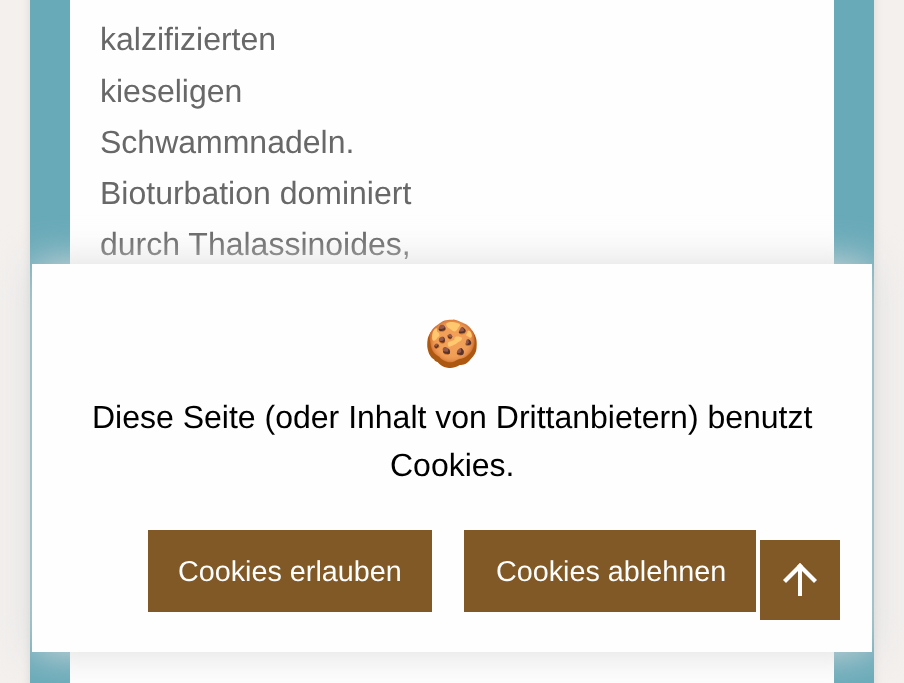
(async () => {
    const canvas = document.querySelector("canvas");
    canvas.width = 904;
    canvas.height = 683;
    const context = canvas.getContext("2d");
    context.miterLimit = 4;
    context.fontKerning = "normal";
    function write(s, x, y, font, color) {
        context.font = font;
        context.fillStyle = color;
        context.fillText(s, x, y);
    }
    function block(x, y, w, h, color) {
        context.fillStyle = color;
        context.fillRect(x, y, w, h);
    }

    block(0, 0, 904, 683, "rgb(243, 240, 238)");
    context.fillStyle = "rgba(0, 0, 0, 0.1)";
    context.filter = "blur(5px)";
    context.beginPath();
    context.rect(30, -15, 844, 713);
    context.fill();
    context.filter = "none";
    block(30, 0, 844, 683, "rgb(105, 170, 185)");
    block(70, 0, 764, 264, "rgb(254, 254, 254)");
    write("kalzifizierten", 100, 50, "32px Liberation Sans", "rgb(104, 104, 104)");
    write("kieseligen", 100, 102, "32px Liberation Sans", "rgb(104, 104, 104)");
    write("Schwammnadeln.", 100, 153, "32px Liberation Sans", "rgb(104, 104, 104)");
    write("Bioturbation dominiert", 100, 204, "32px Liberation Sans", "rgb(104, 104, 104)");
    write("durch Thalassinoides,", 100, 255, "32px Liberation Sans", "rgb(104, 104, 104)");
    block(70, 652, 764, 31, "rgb(254, 254, 254)");
    context.fillStyle = "rgb(221, 221, 221)";
    context.filter = "blur(20px)";
    context.beginPath();
    context.rect(32, 264, 840, 388);
    context.fill();
    context.filter = "none";
    block(32, 264, 840, 388, "rgb(254, 254, 254)");
    write("🍪", 424, 359, "45px Noto Color Emoji", "rgb(104, 104, 104)");
    write("Diese Seite (oder Inhalt von Drittanbietern) benutzt", 92, 428, "32px Liberation Sans", "rgb(0, 0, 0)");
    write("Cookies.", 390, 476, "32px Liberation Sans", "rgb(0, 0, 0)");
    block(148, 530, 284, 82, "rgb(128, 89, 38)");
    write("Cookies erlauben", 178, 581, "28.75px Liberation Sans", "rgb(254, 254, 254)");
    block(464, 530, 292, 82, "rgb(128, 89, 38)");
    write("Cookies ablehnen", 496, 581, "28.75px Liberation Sans", "rgb(254, 254, 254)");
    block(760, 540, 80, 80, "rgb(128, 89, 38)");
    context.fillStyle = "rgb(254, 254, 254)";
    context.beginPath();
    context.moveTo(783, 580);
    context.lineTo(800, 563);
    context.lineTo(803, 566);
    context.lineTo(786, 583);
    context.closePath();
    context.fill();
    context.beginPath();
    context.moveTo(797, 566);
    context.lineTo(800, 563);
    context.lineTo(817, 580);
    context.lineTo(814, 583);
    context.closePath();
    context.fill();
    block(798, 568, 4, 28, "rgb(254, 254, 254)");
})();
